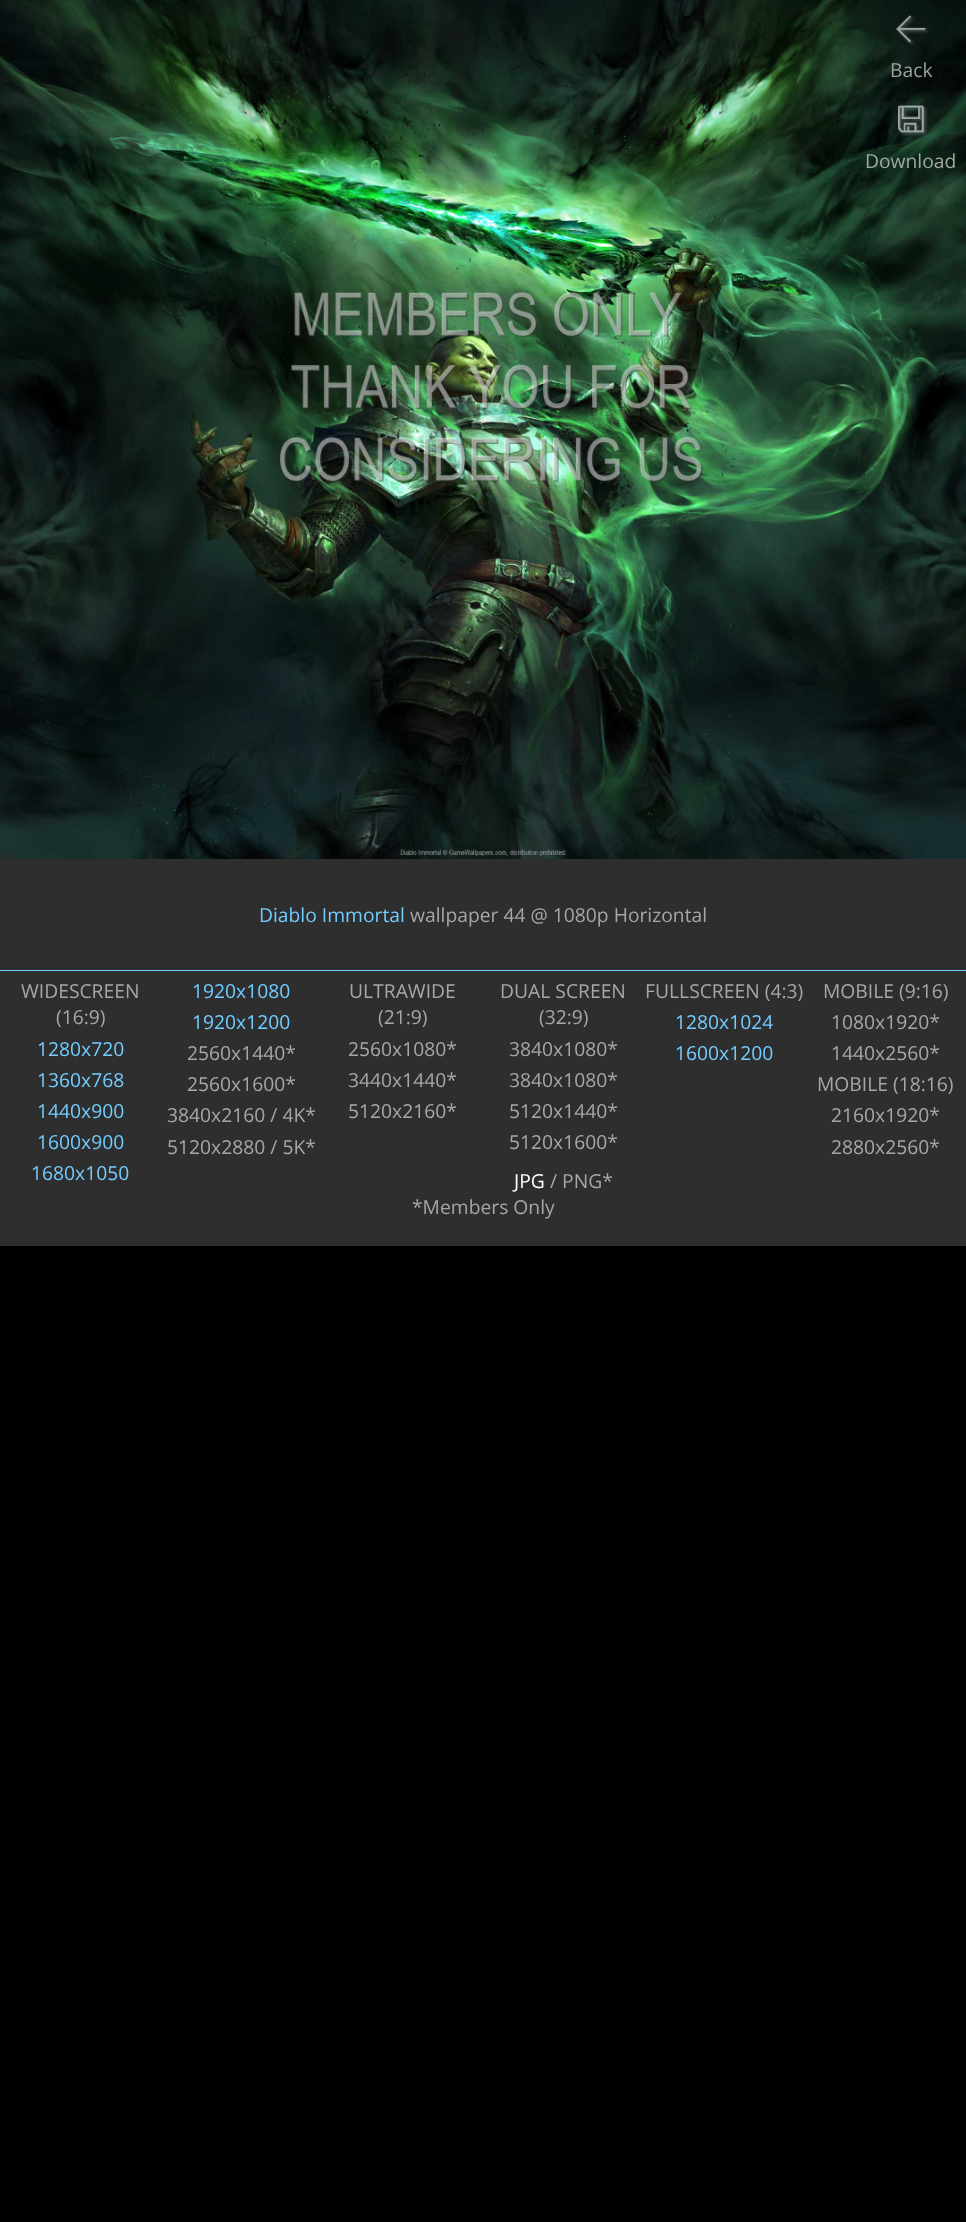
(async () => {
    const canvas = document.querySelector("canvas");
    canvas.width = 966;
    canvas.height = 2222;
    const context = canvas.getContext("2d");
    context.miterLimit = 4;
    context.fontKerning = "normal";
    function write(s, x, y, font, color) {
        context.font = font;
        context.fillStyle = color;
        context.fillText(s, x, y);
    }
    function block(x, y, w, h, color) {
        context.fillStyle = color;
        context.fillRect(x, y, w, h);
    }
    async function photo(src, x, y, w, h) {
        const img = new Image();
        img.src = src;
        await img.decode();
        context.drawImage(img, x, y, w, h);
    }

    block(0, 0, 966, 2222, "rgb(0, 0, 0)");
    await photo("media/1.png", 0, 0, 966, 859);
    await photo("media/2.png", 896, 15, 33, 31);
    write("Back", 890, 77, "19.3px Open Sans", "rgb(156, 161, 159)");
    await photo("media/3.png", 898, 105, 30, 31);
    write("Download", 865, 168, "19.3px Open Sans", "rgb(159, 169, 164)");
    block(0, 1073, 966, 173, "rgb(46, 46, 46)");
    block(0, 859, 966, 111, "rgb(46, 46, 46)");
    write("Diablo Immortal", 259, 922, "19.3px Open Sans", "rgb(114, 204, 255)");
    write("wallpaper 44 @ 1080p Horizontal", 410, 922, "19.3px Open Sans", "rgb(167, 167, 167)");
    block(0, 970, 966, 1, "rgb(114, 204, 255)");
    block(0, 971, 966, 102, "rgb(46, 46, 46)");
    write("WIDESCREEN", 21, 998, "19.3px Open Sans", "rgb(167, 167, 167)");
    write("(16:9)", 56, 1024, "19.3px Open Sans", "rgb(167, 167, 167)");
    write("1280x720", 37, 1056, "19.3px Open Sans", "rgb(114, 204, 255)");
    write("1360x768", 37, 1087, "19.3px Open Sans", "rgb(114, 204, 255)");
    write("1440x900", 37, 1118, "19.3px Open Sans", "rgb(114, 204, 255)");
    write("1600x900", 37, 1149, "19.3px Open Sans", "rgb(114, 204, 255)");
    write("1680x1050", 31, 1180, "19.3px Open Sans", "rgb(114, 204, 255)");
    write("1920x1080", 192, 998, "19.3px Open Sans", "rgb(114, 204, 255)");
    write("1920x1200", 192, 1029, "19.3px Open Sans", "rgb(114, 204, 255)");
    write("2560x1440*", 187, 1060, "19.3px Open Sans", "rgb(167, 167, 167)");
    write("2560x1600*", 187, 1091, "19.3px Open Sans", "rgb(167, 167, 167)");
    write("3840x2160 / 4K*", 167, 1122, "19.3px Open Sans", "rgb(167, 167, 167)");
    write("5120x2880 / 5K*", 167, 1154, "19.3px Open Sans", "rgb(167, 167, 167)");
    write("ULTRAWIDE", 349, 998, "19.3px Open Sans", "rgb(167, 167, 167)");
    write("(21:9)", 378, 1024, "19.3px Open Sans", "rgb(167, 167, 167)");
    write("2560x1080*", 348, 1056, "19.3px Open Sans", "rgb(167, 167, 167)");
    write("3440x1440*", 348, 1087, "19.3px Open Sans", "rgb(167, 167, 167)");
    write("5120x2160*", 348, 1118, "19.3px Open Sans", "rgb(167, 167, 167)");
    write("DUAL SCREEN", 500, 998, "19.3px Open Sans", "rgb(167, 167, 167)");
    write("(32:9)", 539, 1024, "19.3px Open Sans", "rgb(167, 167, 167)");
    write("3840x1080*", 509, 1056, "19.3px Open Sans", "rgb(167, 167, 167)");
    write("3840x1080*", 509, 1087, "19.3px Open Sans", "rgb(167, 167, 167)");
    write("5120x1440*", 509, 1118, "19.3px Open Sans", "rgb(167, 167, 167)");
    write("5120x1600*", 509, 1149, "19.3px Open Sans", "rgb(167, 167, 167)");
    write("FULLSCREEN (4:3)", 645, 998, "19.3px Open Sans", "rgb(167, 167, 167)");
    write("1280x1024", 675, 1029, "19.3px Open Sans", "rgb(114, 204, 255)");
    write("1600x1200", 675, 1060, "19.3px Open Sans", "rgb(114, 204, 255)");
    write("MOBILE (9:16)", 823, 998, "19.3px Open Sans", "rgb(167, 167, 167)");
    write("1080x1920*", 831, 1029, "19.3px Open Sans", "rgb(167, 167, 167)");
    write("1440x2560*", 831, 1060, "19.3px Open Sans", "rgb(167, 167, 167)");
    write("MOBILE (18:16)", 817, 1091, "19.3px Open Sans", "rgb(167, 167, 167)");
    write("2160x1920*", 831, 1122, "19.3px Open Sans", "rgb(167, 167, 167)");
    write("2880x2560*", 831, 1154, "19.3px Open Sans", "rgb(167, 167, 167)");
    write("JPG", 514, 1188, "19.3px Open Sans", "rgb(255, 255, 255)");
    write("/ PNG*", 550, 1188, "19.3px Open Sans", "rgb(167, 167, 167)");
    write("*Members Only", 412, 1214, "19.3px Open Sans", "rgb(167, 167, 167)");
})();
